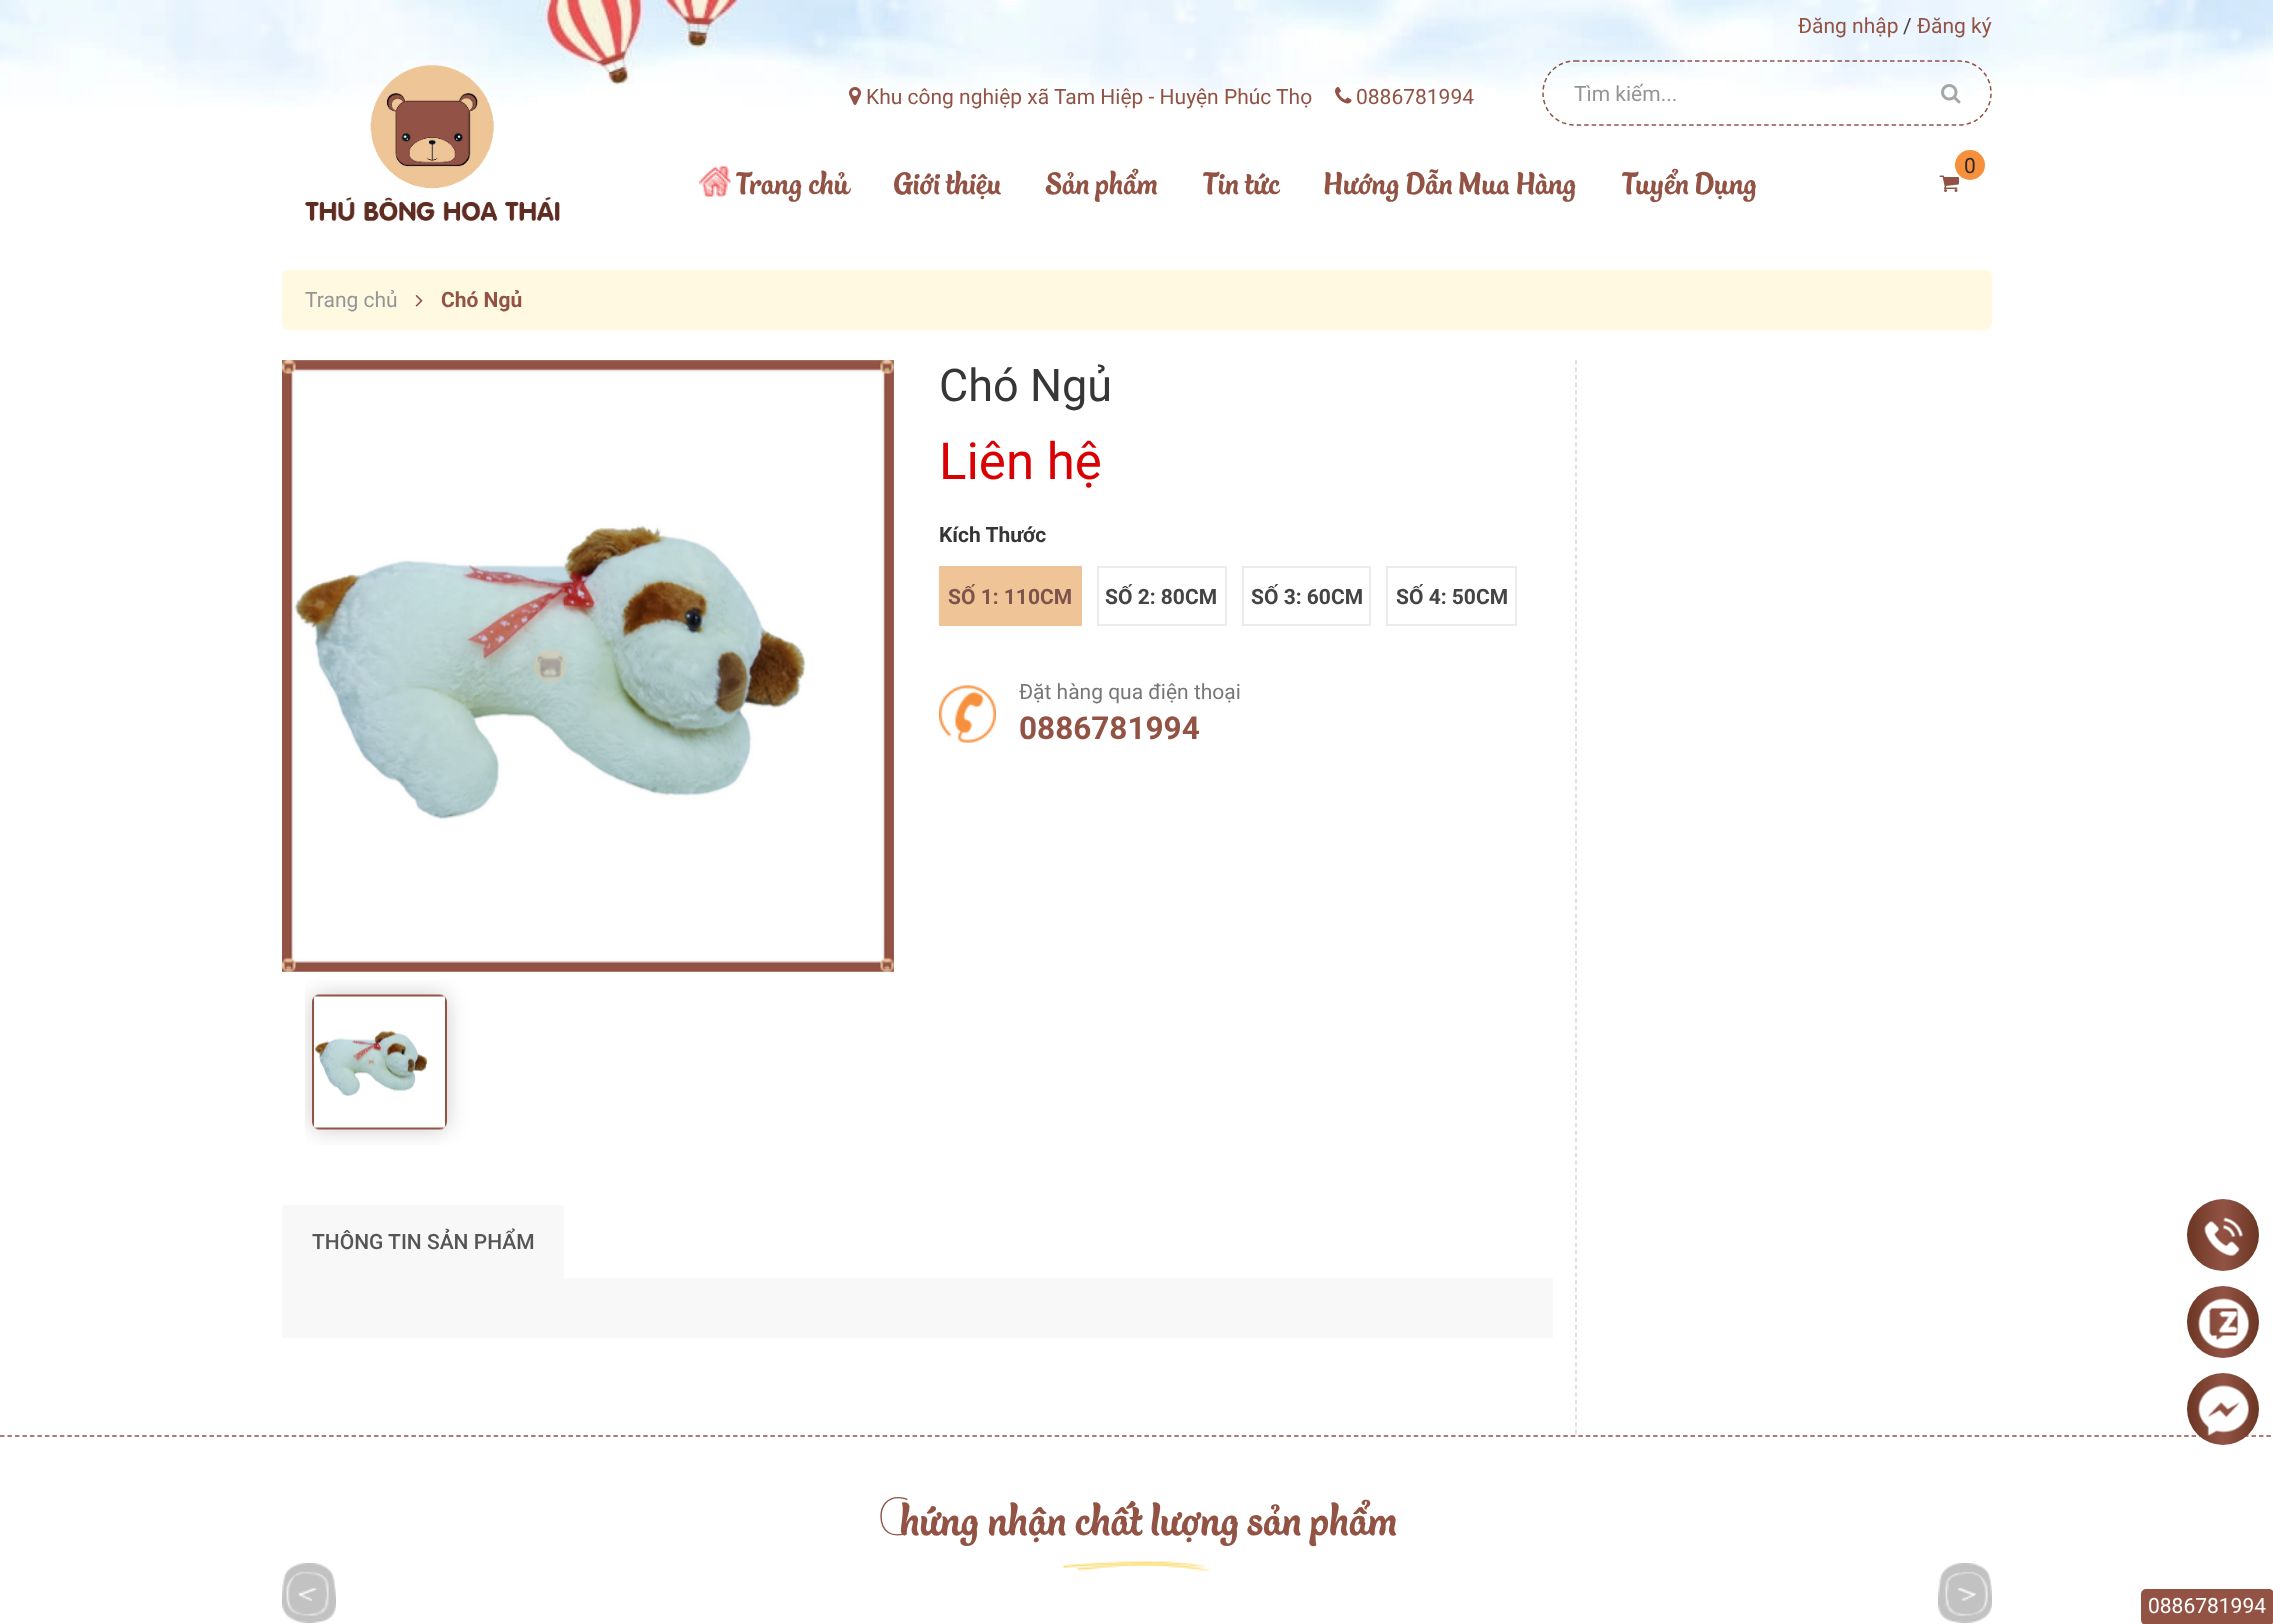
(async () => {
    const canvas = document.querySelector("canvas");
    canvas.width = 2273;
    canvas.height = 1624;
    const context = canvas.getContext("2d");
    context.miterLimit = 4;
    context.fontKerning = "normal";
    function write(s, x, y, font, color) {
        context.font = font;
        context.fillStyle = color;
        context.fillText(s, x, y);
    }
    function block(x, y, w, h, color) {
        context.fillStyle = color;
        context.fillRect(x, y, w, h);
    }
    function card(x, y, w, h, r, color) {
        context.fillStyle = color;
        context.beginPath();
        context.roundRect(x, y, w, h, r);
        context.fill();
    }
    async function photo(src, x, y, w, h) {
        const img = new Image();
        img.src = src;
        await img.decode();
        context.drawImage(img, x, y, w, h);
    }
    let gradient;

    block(0, 0, 2273, 1624, "rgb(255, 255, 255)");
    await photo("media/1.png", 0, 0, 2273, 107);
    await photo("media/2.png", 305, 65, 255, 156);
    write("Đăng nhập", 1798, 33, "21px Roboto", "rgb(146, 83, 69)");
    write("/", 1903, 33, "21px Roboto", "rgb(68, 68, 68)");
    write("Đăng ký", 1917, 33, "21px Roboto", "rgb(146, 83, 69)");
    await photo("media/3.png", 849, 87, 12, 18);
    write("Khu công nghiệp xã Tam Hiệp - Huyện Phúc Thọ", 866, 104, "21px Roboto", "rgb(146, 83, 69)");
    await photo("media/4.png", 1335, 87, 17, 17);
    write("0886781994", 1356, 104, "21px Roboto", "rgb(146, 83, 69)");
    context.beginPath();
    context.moveTo(1575, 61);
    context.lineTo(1959, 61);
    context.bezierCurveTo(1977, 61, 1991, 75, 1991, 93);
    context.bezierCurveTo(1991, 111, 1977, 125, 1959, 125);
    context.lineTo(1575, 125);
    context.bezierCurveTo(1557, 125, 1543, 111, 1543, 93);
    context.bezierCurveTo(1543, 75, 1557, 61, 1575, 61);
    context.closePath();
    context.strokeStyle = "rgb(146, 83, 69)";
    context.lineWidth = 1.5;
    context.setLineDash([4.5, 3]);
    context.stroke();
    write("Tìm kiếm...", 1574, 101, "21px Roboto", "rgb(149, 149, 149)");
    await photo("media/5.png", 1941, 84, 20, 20);
    await photo("media/6.png", 1939, 175, 20, 17);
    context.fillStyle = "rgb(246, 144, 61)";
    context.beginPath();
    context.arc(1970, 165, 15, 0, Math.PI * 2);
    context.fill();
    context.letterSpacing = "-2px";
    write("0", 1964, 173, "21px Roboto", "rgb(42, 42, 42)");
    await photo("media/7.png", 699, 166, 32, 31);
    context.letterSpacing = "0px";
    write("Trang chủ", 736, 194, "37.5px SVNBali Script", "rgb(146, 83, 69)");
    write("Giới thiệu", 894, 194, "37.5px SVNBali Script", "rgb(146, 83, 69)");
    write("Sản phẩm", 1046, 194, "37.5px SVNBali Script", "rgb(146, 83, 69)");
    write("Tin tức", 1203, 194, "37.5px SVNBali Script", "rgb(146, 83, 69)");
    write("Hướng Dẫn Mua Hàng", 1324, 194, "37.5px SVNBali Script", "rgb(146, 83, 69)");
    write("Tuyển Dụng", 1622, 194, "37.5px SVNBali Script", "rgb(146, 83, 69)");
    card(282, 270, 1710, 60, 6, "rgb(255, 249, 226)");
    write("Trang chủ", 305, 307, "21px Roboto", "rgb(149, 149, 149)");
    await photo("media/8.png", 415, 295, 8, 12);
    write("Chó Ngủ", 441, 307, "bold 21px Roboto", "rgb(146, 83, 69)");
    context.beginPath();
    context.moveTo(1576, 360);
    context.lineTo(1576, 1435.5);
    context.strokeStyle = "rgb(216, 216, 216)";
    context.setLineDash([4.5, 2.98]);
    context.stroke();
    await photo("media/9.png", 282, 360, 612, 612);
    context.save();
    context.beginPath();
    context.rect(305, 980, 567, 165);
    context.clip();
    context.fillStyle = "rgba(0, 0, 0, 0.2)";
    context.filter = "blur(11px)";
    context.beginPath();
    context.roundRect(312, 995, 135, 135, 8);
    context.fill();
    context.filter = "none";
    context.restore();
    await photo("media/10.png", 312, 994, 135, 136);
    write("Chó Ngủ", 939, 401, "45px Roboto", "rgb(54, 54, 54)");
    write("Liên hệ", 939, 479, "51px Roboto", "rgb(217, 0, 3)");
    write("Kích Thước", 939, 542, "bold 21px Roboto", "rgb(54, 54, 54)");
    block(939, 566, 143, 60, "rgb(239, 197, 151)");
    write("SỐ 1: 110CM", 948, 604, "bold 21px Roboto", "rgb(125, 84, 76)");
    context.strokeStyle = "rgb(235, 235, 235)";
    context.lineWidth = 2;
    context.setLineDash([]);
    context.strokeRect(1098, 567, 128, 58);
    write("SỐ 2: 80CM", 1105, 604, "bold 21px Roboto", "rgb(68, 68, 68)");
    context.strokeRect(1243, 567, 127, 58);
    write("SỐ 3: 60CM", 1251, 604, "bold 21px Roboto", "rgb(68, 68, 68)");
    context.strokeRect(1387, 567, 129, 58);
    write("SỐ 4: 50CM", 1396, 604, "bold 21px Roboto", "rgb(68, 68, 68)");
    await photo("media/11.png", 939, 685, 57, 58);
    write("Đặt hàng qua điện thoại", 1019, 699, "21px Roboto", "rgb(119, 119, 119)");
    write("0886781994", 1019, 739, "bold 31.5px Roboto", "rgb(146, 83, 69)");
    block(282, 1205, 282, 73, "rgb(248, 248, 248)");
    write("THÔNG TIN SẢN PHẨM", 312, 1249, "500 21px Roboto", "rgb(85, 85, 85)");
    block(282, 1278, 1271, 60, "rgb(248, 248, 248)");
    gradient = context.createLinearGradient(2187, 1235, 2259, 1235);
    gradient.addColorStop(0, "rgb(107, 54, 35)");
    gradient.addColorStop(0.5, "rgb(146, 83, 69)");
    gradient.addColorStop(1, "rgb(107, 54, 35)");
    context.fillStyle = gradient;
    context.beginPath();
    context.arc(2223, 1235, 36, 0, Math.PI * 2);
    context.fill();
    await photo("media/12.png", 2204, 1217, 39, 39);
    gradient = context.createLinearGradient(2187, 1322, 2259, 1322);
    gradient.addColorStop(0, "rgb(107, 54, 35)");
    gradient.addColorStop(0.5, "rgb(146, 83, 69)");
    gradient.addColorStop(1, "rgb(107, 54, 35)");
    context.fillStyle = gradient;
    context.beginPath();
    context.arc(2223, 1322, 36, 0, Math.PI * 2);
    context.fill();
    await photo("media/13.png", 2198, 1298, 51, 51);
    context.beginPath();
    context.moveTo(0, 1436);
    context.lineTo(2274, 1436);
    context.strokeStyle = "rgb(146, 83, 69)";
    context.lineWidth = 1.5;
    context.setLineDash([4.5, 2.98]);
    context.stroke();
    gradient = context.createLinearGradient(2187, 1409, 2259, 1409);
    gradient.addColorStop(0, "rgb(107, 54, 35)");
    gradient.addColorStop(0.5, "rgb(146, 83, 69)");
    gradient.addColorStop(1, "rgb(107, 54, 35)");
    context.fillStyle = gradient;
    context.beginPath();
    context.arc(2223, 1409, 36, 0, Math.PI * 2);
    context.fill();
    await photo("media/14.png", 2198, 1385, 51, 51);
    await photo("media/15.png", 1063, 1561, 148, 10);
    write("C", 877, 1535, "100 52.5px Noto Sans", "rgb(146, 83, 69)");
    write("hứng nhận chất lượng sản phẩm", 900, 1535, "52.5px SVNBali Script", "rgb(146, 83, 69)");
    await photo("media/16.png", 282, 1563, 54, 60);
    await photo("media/17.png", 1938, 1563, 54, 60);
    card(2141, 1589, 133, 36, 5, "rgb(146, 83, 69)");
    write("0886781994", 2148, 1613, "21px Roboto", "rgb(255, 255, 255)");
})();
